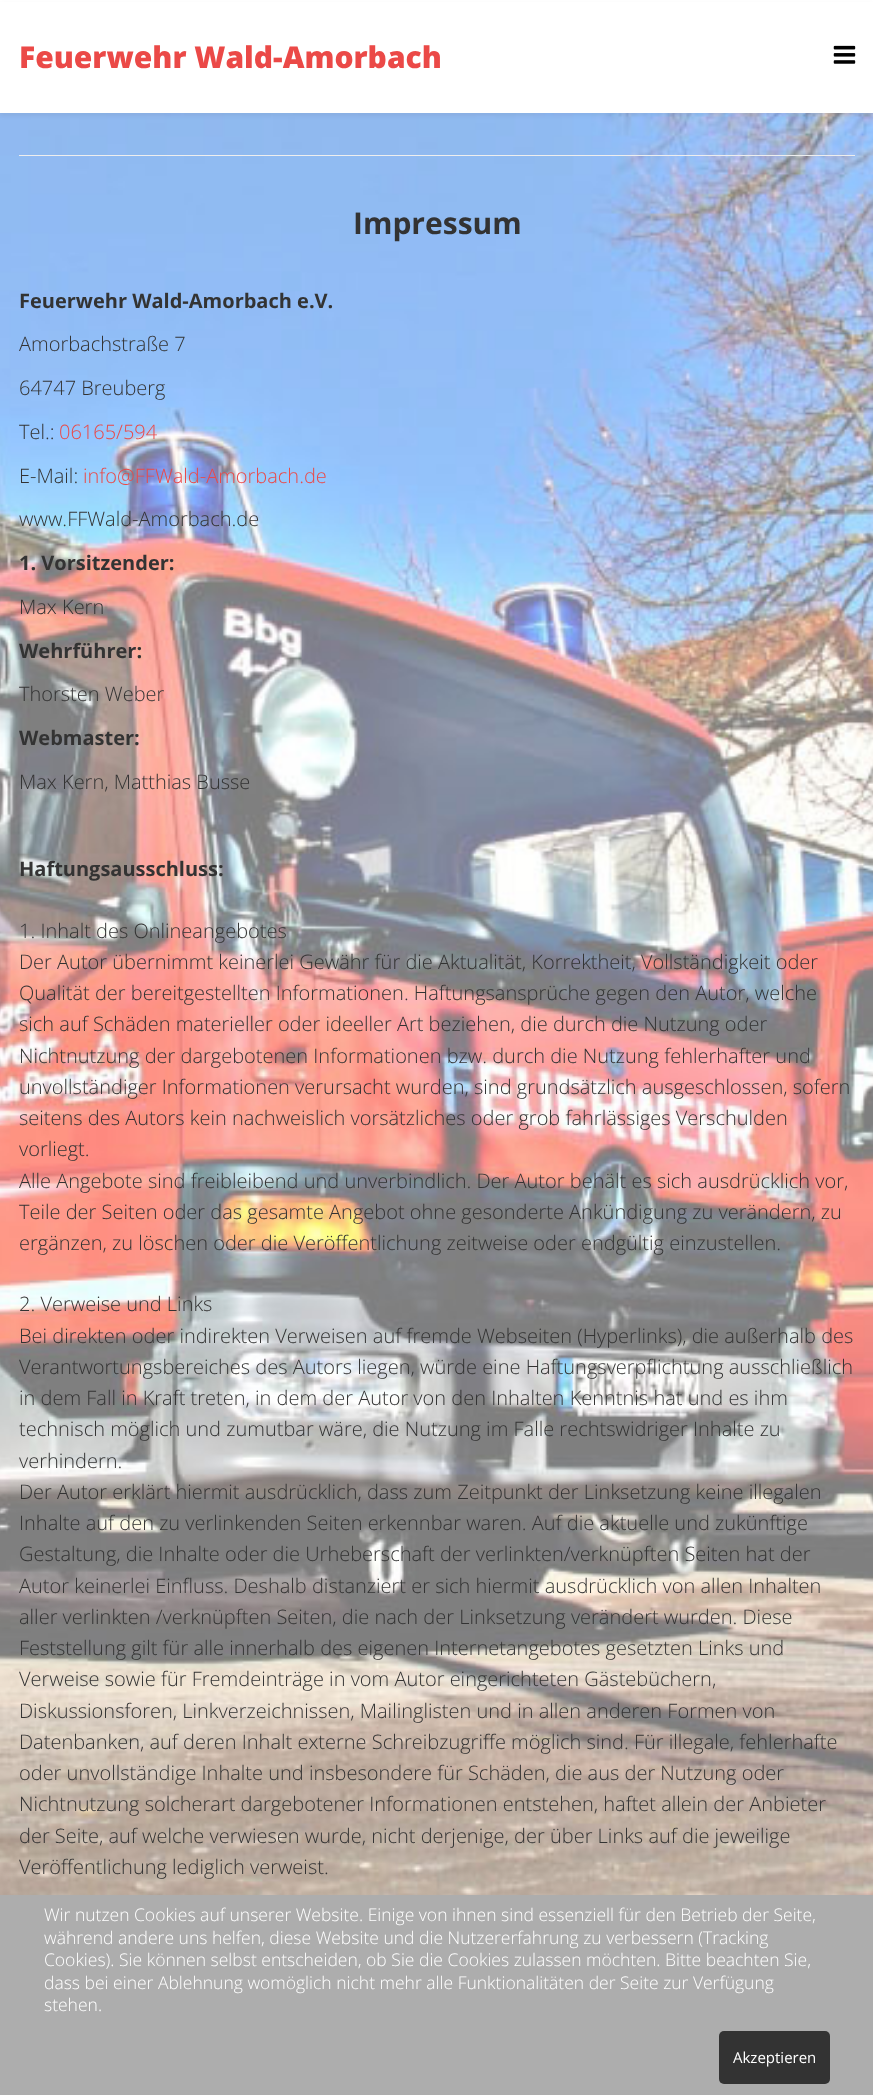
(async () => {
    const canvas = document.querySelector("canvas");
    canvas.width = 873;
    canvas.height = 2095;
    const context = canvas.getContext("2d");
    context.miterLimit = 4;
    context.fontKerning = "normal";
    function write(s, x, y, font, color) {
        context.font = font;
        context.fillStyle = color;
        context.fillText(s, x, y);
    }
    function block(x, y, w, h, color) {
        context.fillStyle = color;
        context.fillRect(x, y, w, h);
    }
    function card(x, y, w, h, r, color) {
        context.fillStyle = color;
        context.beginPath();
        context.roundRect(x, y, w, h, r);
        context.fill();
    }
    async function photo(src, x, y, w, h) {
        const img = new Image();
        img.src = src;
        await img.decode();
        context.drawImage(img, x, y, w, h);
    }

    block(0, 0, 873, 2095, "rgb(255, 255, 255)");
    await photo("media/1.png", 0, 113, 873, 1782);
    context.fillStyle = "rgba(0, 0, 0, 0.05)";
    context.filter = "blur(2px)";
    context.beginPath();
    context.rect(0, 4, 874, 112);
    context.fill();
    context.filter = "none";
    block(0, 2, 873, 111, "rgb(255, 255, 255)");
    write("Feuerwehr Wald-Amorbach", 19, 68, "800 30px Open Sans", "rgb(235, 73, 71)");
    await photo("media/2.png", 833, 45, 23, 19);
    block(19, 155, 836, 1, "rgb(238, 238, 238)");
    write("Impressum", 353, 234, "bold 30px Open Sans", "rgb(51, 51, 51)");
    write("Feuerwehr Wald-Amorbach e.V.", 19, 308, "bold 20px Open Sans", "rgb(51, 51, 51)");
    write("Amorbachstraße 7", 19, 351, "300 20px Open Sans", "rgb(51, 51, 51)");
    write("64747 Breuberg", 19, 395, "300 20px Open Sans", "rgb(51, 51, 51)");
    write("Tel.:", 19, 439, "300 20px Open Sans", "rgb(51, 51, 51)");
    write("06165/594", 59, 439, "300 20px Open Sans", "rgb(235, 73, 71)");
    write("E-Mail:", 19, 483, "300 20px Open Sans", "rgb(51, 51, 51)");
    write("info@FFWald-Amorbach.de", 83, 483, "300 20px Open Sans", "rgb(235, 73, 71)");
    write("www.FFWald-Amorbach.de", 19, 526, "300 20px Open Sans", "rgb(51, 51, 51)");
    write("1. Vorsitzender:", 19, 570, "bold 20px Open Sans", "rgb(51, 51, 51)");
    write("Max Kern", 19, 614, "300 20px Open Sans", "rgb(51, 51, 51)");
    write("Wehrführer:", 19, 658, "bold 20px Open Sans", "rgb(51, 51, 51)");
    write("Thorsten Weber", 19, 701, "300 20px Open Sans", "rgb(51, 51, 51)");
    write("Webmaster:", 19, 745, "bold 20px Open Sans", "rgb(51, 51, 51)");
    write("Max Kern, Matthias Busse", 19, 789, "300 20px Open Sans", "rgb(51, 51, 51)");
    write("Haftungsausschluss:", 19, 876, "bold 20px Open Sans", "rgb(51, 51, 51)");
    write("1. Inhalt des Onlineangebotes", 19, 938, "300 20px Open Sans", "rgb(51, 51, 51)");
    write("Der Autor übernimmt keinerlei Gewähr für die Aktualität, Korrektheit, Vollständigkeit oder", 19, 969, "300 20px Open Sans", "rgb(51, 51, 51)");
    write("Qualität der bereitgestellten Informationen. Haftungsansprüche gegen den Autor, welche", 19, 1000, "300 20px Open Sans", "rgb(51, 51, 51)");
    write("sich auf Schäden materieller oder ideeller Art beziehen, die durch die Nutzung oder", 19, 1031, "300 20px Open Sans", "rgb(51, 51, 51)");
    write("Nichtnutzung der dargebotenen Informationen bzw. durch die Nutzung fehlerhafter und", 19, 1063, "300 20px Open Sans", "rgb(51, 51, 51)");
    write("unvollständiger Informationen verursacht wurden, sind grundsätzlich ausgeschlossen, sofern", 19, 1094, "300 20px Open Sans", "rgb(51, 51, 51)");
    write("seitens des Autors kein nachweislich vorsätzliches oder grob fahrlässiges Verschulden", 19, 1125, "300 20px Open Sans", "rgb(51, 51, 51)");
    write("vorliegt.", 19, 1156, "300 20px Open Sans", "rgb(51, 51, 51)");
    write("Alle Angebote sind freibleibend und unverbindlich. Der Autor behält es sich ausdrücklich vor,", 19, 1188, "300 20px Open Sans", "rgb(51, 51, 51)");
    write("Teile der Seiten oder das gesamte Angebot ohne gesonderte Ankündigung zu verändern, zu", 19, 1219, "300 20px Open Sans", "rgb(51, 51, 51)");
    write("ergänzen, zu löschen oder die Veröffentlichung zeitweise oder endgültig einzustellen.", 19, 1250, "300 20px Open Sans", "rgb(51, 51, 51)");
    write("2. Verweise und Links", 19, 1311, "300 20px Open Sans", "rgb(51, 51, 51)");
    write("Bei direkten oder indirekten Verweisen auf fremde Webseiten (Hyperlinks), die außerhalb des", 19, 1343, "300 20px Open Sans", "rgb(51, 51, 51)");
    write("Verantwortungsbereiches des Autors liegen, würde eine Haftungsverpflichtung ausschließlich", 19, 1374, "300 20px Open Sans", "rgb(51, 51, 51)");
    write("in dem Fall in Kraft treten, in dem der Autor von den Inhalten Kenntnis hat und es ihm", 19, 1405, "300 20px Open Sans", "rgb(51, 51, 51)");
    write("technisch möglich und zumutbar wäre, die Nutzung im Falle rechtswidriger Inhalte zu", 19, 1436, "300 20px Open Sans", "rgb(51, 51, 51)");
    write("verhindern.", 19, 1468, "300 20px Open Sans", "rgb(51, 51, 51)");
    write("Der Autor erklärt hiermit ausdrücklich, dass zum Zeitpunkt der Linksetzung keine illegalen", 19, 1499, "300 20px Open Sans", "rgb(51, 51, 51)");
    write("Inhalte auf den zu verlinkenden Seiten erkennbar waren. Auf die aktuelle und zukünftige", 19, 1530, "300 20px Open Sans", "rgb(51, 51, 51)");
    write("Gestaltung, die Inhalte oder die Urheberschaft der verlinkten/verknüpften Seiten hat der", 19, 1561, "300 20px Open Sans", "rgb(51, 51, 51)");
    write("Autor keinerlei Einfluss. Deshalb distanziert er sich hiermit ausdrücklich von allen Inhalten", 19, 1593, "300 20px Open Sans", "rgb(51, 51, 51)");
    write("aller verlinkten /verknüpften Seiten, die nach der Linksetzung verändert wurden. Diese", 19, 1624, "300 20px Open Sans", "rgb(51, 51, 51)");
    write("Feststellung gilt für alle innerhalb des eigenen Internetangebotes gesetzten Links und", 19, 1655, "300 20px Open Sans", "rgb(51, 51, 51)");
    write("Verweise sowie für Fremdeinträge in vom Autor eingerichteten Gästebüchern,", 19, 1686, "300 20px Open Sans", "rgb(51, 51, 51)");
    write("Diskussionsforen, Linkverzeichnissen, Mailinglisten und in allen anderen Formen von", 19, 1718, "300 20px Open Sans", "rgb(51, 51, 51)");
    write("Datenbanken, auf deren Inhalt externe Schreibzugriffe möglich sind. Für illegale, fehlerhafte", 19, 1749, "300 20px Open Sans", "rgb(51, 51, 51)");
    write("oder unvollständige Inhalte und insbesondere für Schäden, die aus der Nutzung oder", 19, 1780, "300 20px Open Sans", "rgb(51, 51, 51)");
    write("Nichtnutzung solcherart dargebotener Informationen entstehen, haftet allein der Anbieter", 19, 1811, "300 20px Open Sans", "rgb(51, 51, 51)");
    write("der Seite, auf welche verwiesen wurde, nicht derjenige, der über Links auf die jeweilige", 19, 1843, "300 20px Open Sans", "rgb(51, 51, 51)");
    write("Veröffentlichung lediglich verweist.", 19, 1874, "300 20px Open Sans", "rgb(51, 51, 51)");
    block(0, 1895, 873, 200, "rgb(173, 173, 173)");
    write("Wir nutzen Cookies auf unserer Website. Einige von ihnen sind essenziell für den Betrieb der Seite,", 44, 1921, "300 17.5px Open Sans", "rgb(255, 255, 255)");
    write("während andere uns helfen, diese Website und die Nutzererfahrung zu verbessern (Tracking", 44, 1944, "300 17.5px Open Sans", "rgb(255, 255, 255)");
    write("Cookies). Sie können selbst entscheiden, ob Sie die Cookies zulassen möchten. Bitte beachten Sie,", 44, 1966, "300 17.5px Open Sans", "rgb(255, 255, 255)");
    write("dass bei einer Ablehnung womöglich nicht mehr alle Funktionalitäten der Seite zur Verfügung", 44, 1989, "300 17.5px Open Sans", "rgb(255, 255, 255)");
    write("stehen.", 44, 2011, "300 17.5px Open Sans", "rgb(255, 255, 255)");
    card(719, 2031, 111, 53, 5, "rgb(51, 51, 51)");
    write("Akzeptieren", 733, 2063, "15px Open Sans", "rgb(255, 255, 255)");
})();
